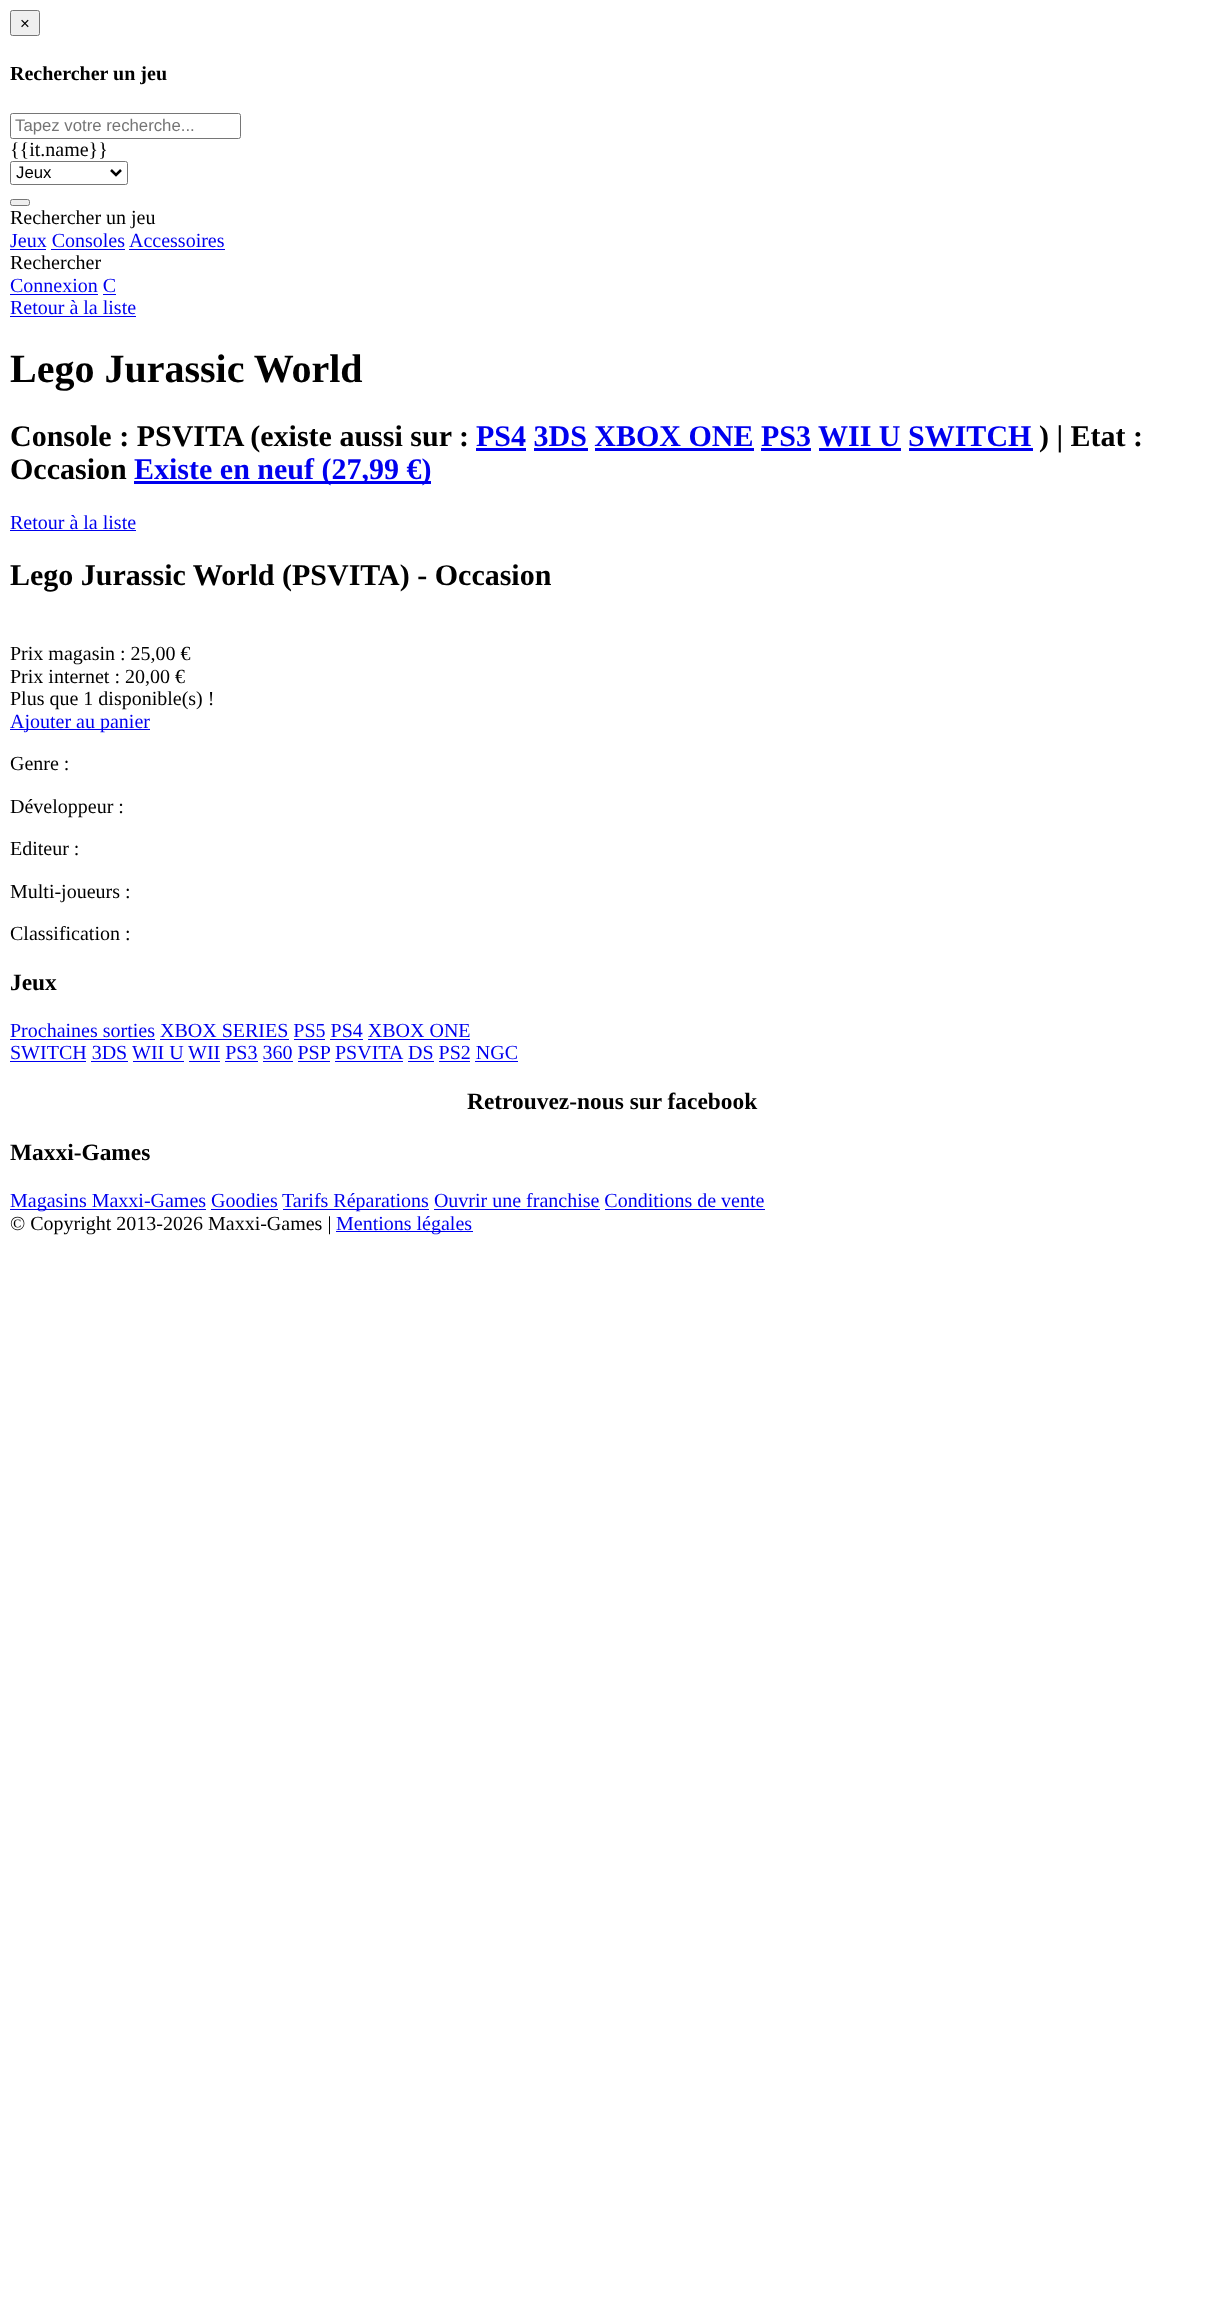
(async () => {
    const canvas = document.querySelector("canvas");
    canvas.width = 1224;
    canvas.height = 2301;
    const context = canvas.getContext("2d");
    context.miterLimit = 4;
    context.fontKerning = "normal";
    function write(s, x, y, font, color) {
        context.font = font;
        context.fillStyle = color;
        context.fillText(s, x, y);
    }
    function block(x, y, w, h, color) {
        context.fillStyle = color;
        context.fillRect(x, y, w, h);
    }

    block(0, 0, 1224, 2301, "rgb(255, 255, 255)");
    context.fillStyle = "rgb(239, 239, 239)";
    context.beginPath();
    context.roundRect(10.5, 10.5, 29, 25, 2);
    context.fill();
    context.strokeStyle = "rgb(118, 118, 118)";
    context.stroke();
    write("×", 20, 29, "16.75px Liberation Sans", "rgb(0, 0, 0)");
    write("Rechercher un jeu", 10, 80, "bold 20px Liberation Serif", "rgb(0, 0, 0)");
    context.beginPath();
    context.roundRect(10.5, 113.5, 230, 25, 2);
    context.stroke();
    write("Tapez votre recherche...", 15, 131, "16.75px Liberation Sans", "rgb(117, 117, 117)");
    write("{{it.name}}", 10, 156, "20px Liberation Serif", "rgb(0, 0, 0)");
    context.beginPath();
    context.roundRect(10.5, 161.5, 117, 23, 2);
    context.stroke();
    context.beginPath();
    context.moveTo(111, 170);
    context.lineTo(116, 175);
    context.lineTo(121, 170);
    context.strokeStyle = "rgb(0, 0, 0)";
    context.lineWidth = 2.5;
    context.stroke();
    write("Jeux", 16, 178, "16.75px Liberation Sans", "rgb(0, 0, 0)");
    context.fillStyle = "rgb(239, 239, 239)";
    context.beginPath();
    context.roundRect(10.5, 199.5, 19, 6, 2);
    context.fill();
    context.strokeStyle = "rgb(118, 118, 118)";
    context.lineWidth = 1;
    context.stroke();
    write("Rechercher un jeu", 10, 224, "20px Liberation Serif", "rgb(0, 0, 0)");
    write("Jeux Consoles", 10, 247, "20px Liberation Serif", "rgb(0, 0, 238)");
    block(10, 249, 36, 1, "rgb(0, 0, 238)");
    write("Accessoires", 129, 247, "20px Liberation Serif", "rgb(0, 0, 238)");
    block(129, 249, 96, 1, "rgb(0, 0, 238)");
    block(51, 249, 74, 1, "rgb(0, 0, 238)");
    write("Rechercher", 10, 269, "20px Liberation Serif", "rgb(0, 0, 0)");
    write("Connexion C", 10, 292, "20px Liberation Serif", "rgb(0, 0, 238)");
    block(10, 294, 88, 1, "rgb(0, 0, 238)");
    block(103, 294, 13, 1, "rgb(0, 0, 238)");
    write("Retour à la liste", 10, 314, "20px Liberation Serif", "rgb(0, 0, 238)");
    block(10, 316, 126, 1, "rgb(0, 0, 238)");
    write("Lego Jurassic World", 10, 382, "bold 40px Liberation Serif", "rgb(0, 0, 0)");
    write("Console : PSVITA (existe aussi sur :", 10, 446, "bold 30px Liberation Serif", "rgb(0, 0, 0)");
    write("PS4 3DS XBOX ONE PS3", 476, 446, "bold 30px Liberation Serif", "rgb(0, 0, 238)");
    block(476, 448, 50, 3, "rgb(0, 0, 238)");
    block(534, 448, 54, 3, "rgb(0, 0, 238)");
    block(595, 448, 159, 3, "rgb(0, 0, 238)");
    block(761, 448, 50, 3, "rgb(0, 0, 238)");
    write("WII U SWITCH", 818, 446, "bold 30px Liberation Serif", "rgb(0, 0, 238)");
    block(819, 448, 82, 3, "rgb(0, 0, 238)");
    block(909, 448, 124, 3, "rgb(0, 0, 238)");
    write(") | Etat :", 1039, 446, "bold 30px Liberation Serif", "rgb(0, 0, 0)");
    write("Occasion", 10, 479, "bold 30px Liberation Serif", "rgb(0, 0, 0)");
    block(134, 481, 297, 3, "rgb(0, 0, 238)");
    write("Existe en neuf (27,99 €)", 134, 479, "bold 30px Liberation Serif", "rgb(0, 0, 238)");
    write("Retour à la liste", 10, 529, "20px Liberation Serif", "rgb(0, 0, 238)");
    block(10, 530, 126, 1, "rgb(0, 0, 238)");
    write("Lego Jurassic World (PSVITA) - Occasion", 10, 585, "bold 30px Liberation Serif", "rgb(0, 0, 0)");
    write("Prix magasin : 25,00 €", 10, 660, "20px Liberation Serif", "rgb(0, 0, 0)");
    write("Prix internet : 20,00 €", 10, 683, "20px Liberation Serif", "rgb(0, 0, 0)");
    write("Plus que 1 disponible(s) !", 10, 705, "20px Liberation Serif", "rgb(0, 0, 0)");
    block(10, 729, 140, 1, "rgb(0, 0, 238)");
    write("Ajouter au panier", 10, 728, "20px Liberation Serif", "rgb(0, 0, 238)");
    write("Genre :", 10, 770, "20px Liberation Serif", "rgb(0, 0, 0)");
    write("Développeur :", 10, 813, "20px Liberation Serif", "rgb(0, 0, 0)");
    write("Editeur :", 10, 855, "20px Liberation Serif", "rgb(0, 0, 0)");
    write("Multi-joueurs :", 10, 898, "20px Liberation Serif", "rgb(0, 0, 0)");
    write("Classification :", 10, 940, "20px Liberation Serif", "rgb(0, 0, 0)");
    write("Jeux", 10, 990, "bold 23.4px Liberation Serif", "rgb(0, 0, 0)");
    write("Prochaines sorties XBOX SERIES PS5 PS4 XBOX ONE", 10, 1037, "20px Liberation Serif", "rgb(0, 0, 238)");
    block(10, 1039, 145, 1, "rgb(0, 0, 238)");
    block(160, 1039, 129, 1, "rgb(0, 0, 238)");
    block(294, 1039, 31, 1, "rgb(0, 0, 238)");
    block(330, 1039, 33, 1, "rgb(0, 0, 238)");
    block(368, 1039, 102, 1, "rgb(0, 0, 238)");
    write("SWITCH 3DS", 10, 1059, "20px Liberation Serif", "rgb(0, 0, 238)");
    block(10, 1061, 76, 1, "rgb(0, 0, 238)");
    write("WII U", 132, 1059, "20px Liberation Serif", "rgb(0, 0, 238)");
    block(133, 1061, 51, 1, "rgb(0, 0, 238)");
    write("WII PS3 360 PSP", 188, 1059, "20px Liberation Serif", "rgb(0, 0, 238)");
    block(189, 1061, 31, 1, "rgb(0, 0, 238)");
    write("PSVITA", 335, 1059, "20px Liberation Serif", "rgb(0, 0, 238)");
    block(335, 1061, 68, 1, "rgb(0, 0, 238)");
    write("DS PS2 NGC", 408, 1059, "20px Liberation Serif", "rgb(0, 0, 238)");
    block(408, 1061, 26, 1, "rgb(0, 0, 238)");
    block(91, 1061, 37, 1, "rgb(0, 0, 238)");
    block(225, 1061, 33, 1, "rgb(0, 0, 238)");
    block(263, 1061, 30, 1, "rgb(0, 0, 238)");
    block(298, 1061, 32, 1, "rgb(0, 0, 238)");
    block(439, 1061, 31, 1, "rgb(0, 0, 238)");
    block(475, 1061, 43, 1, "rgb(0, 0, 238)");
    write("Retrouvez-nous sur facebook", 467, 1109, "bold 23.4px Liberation Serif", "rgb(0, 0, 0)");
    write("Maxxi-Games", 10, 1160, "bold 23.4px Liberation Serif", "rgb(0, 0, 0)");
    block(10, 1209, 196, 1, "rgb(0, 0, 238)");
    write("Magasins Maxxi-Games Goodies", 10, 1207, "20px Liberation Serif", "rgb(0, 0, 238)");
    block(283, 1209, 146, 1, "rgb(0, 0, 238)");
    write("Tarifs Réparations Ouvrir une franchise Conditions de vente", 282, 1207, "20px Liberation Serif", "rgb(0, 0, 238)");
    block(211, 1209, 67, 1, "rgb(0, 0, 238)");
    block(434, 1209, 166, 1, "rgb(0, 0, 238)");
    block(605, 1209, 160, 1, "rgb(0, 0, 238)");
    write("© Copyright 2013-2026 Maxxi-Games |", 10, 1230, "20px Liberation Serif", "rgb(0, 0, 0)");
    block(336, 1231, 137, 1, "rgb(0, 0, 238)");
    write("Mentions légales", 336, 1230, "20px Liberation Serif", "rgb(0, 0, 238)");
})();
